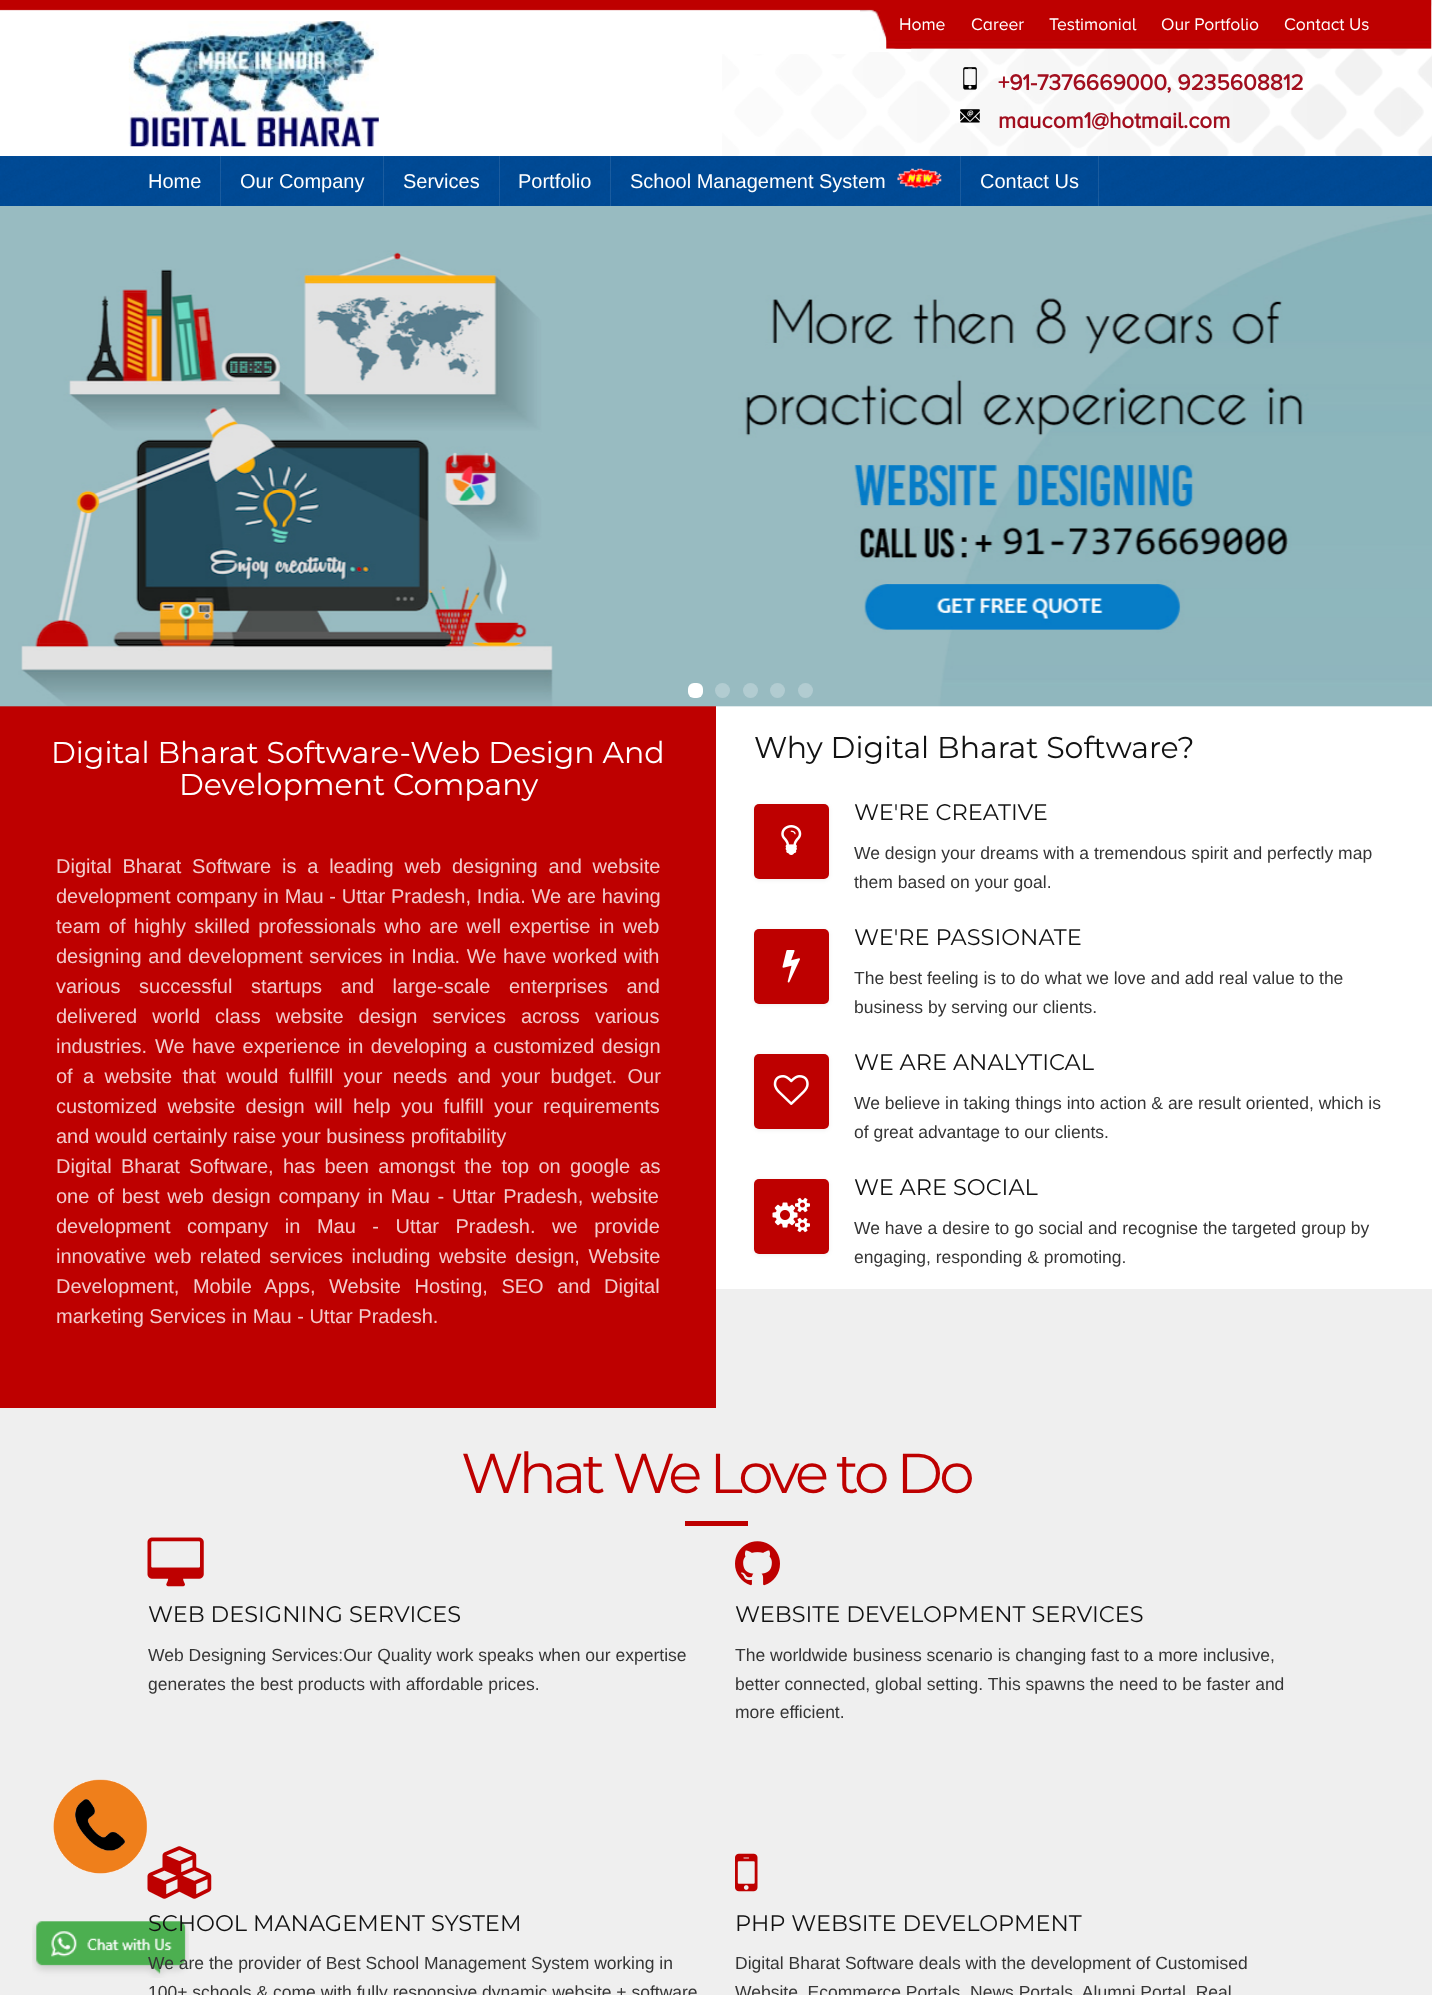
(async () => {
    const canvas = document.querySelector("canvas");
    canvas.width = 1432;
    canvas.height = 1995;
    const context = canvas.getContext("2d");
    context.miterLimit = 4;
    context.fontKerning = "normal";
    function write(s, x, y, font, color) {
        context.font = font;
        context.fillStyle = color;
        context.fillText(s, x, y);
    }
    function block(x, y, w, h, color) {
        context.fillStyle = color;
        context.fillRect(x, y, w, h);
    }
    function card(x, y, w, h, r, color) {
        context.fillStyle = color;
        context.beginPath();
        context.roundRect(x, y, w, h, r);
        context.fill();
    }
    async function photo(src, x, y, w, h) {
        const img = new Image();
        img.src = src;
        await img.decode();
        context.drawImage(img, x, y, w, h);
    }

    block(0, 0, 1432, 1995, "rgb(255, 255, 255)");
    await photo("media/1.png", 722, 0, 710, 156);
    block(722, 11, 138, 43, "rgb(255, 255, 255)");
    await photo("media/2.png", 0, 0, 860, 11);
    await photo("media/3.png", 860, 0, 52, 52);
    await photo("media/4.png", 886, 0, 546, 49);
    write("Home", 899, 30, "17.5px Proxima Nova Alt", "rgb(255, 255, 255)");
    write("Career", 971, 30, "17.5px Proxima Nova Alt", "rgb(255, 255, 255)");
    write("Testimonial", 1049, 30, "17.5px Proxima Nova Alt", "rgb(255, 255, 255)");
    write("Our Portfolio", 1161, 30, "17.5px Proxima Nova Alt", "rgb(255, 255, 255)");
    write("Contact Us", 1284, 30, "17.5px Proxima Nova Alt", "rgb(255, 255, 255)");
    await photo("media/5.png", 128, 21, 251, 126);
    await photo("media/6.png", 963, 67, 14, 23);
    write("+91-7376669000, 9235608812", 998, 90, "bold 22.5px Proxima Nova Alt", "rgb(162, 14, 30)");
    await photo("media/7.png", 960, 109, 20, 14);
    write("maucom1@hotmail.com", 998, 128, "bold 22.5px Proxima Nova Alt", "rgb(162, 14, 30)");
    block(0, 156, 1432, 50, "rgb(0, 81, 163)");
    await photo("media/8.png", 0, 156, 1432, 50);
    block(220, 156, 1, 50, "rgba(255, 255, 255, 0.1)");
    write("Home", 148, 188, "20px Liberation Sans", "rgb(255, 255, 255)");
    block(383, 156, 1, 50, "rgba(255, 255, 255, 0.1)");
    write("Our Company", 240, 188, "20px Liberation Sans", "rgb(255, 255, 255)");
    block(499, 156, 1, 50, "rgba(255, 255, 255, 0.1)");
    write("Services", 403, 188, "20px Liberation Sans", "rgb(255, 255, 255)");
    block(610, 156, 1, 50, "rgba(255, 255, 255, 0.1)");
    write("Portfolio", 518, 188, "20px Liberation Sans", "rgb(255, 255, 255)");
    block(960, 156, 1, 50, "rgba(255, 255, 255, 0.1)");
    write("School Management System", 630, 188, "20px Liberation Sans", "rgb(255, 255, 255)");
    await photo("media/9.png", 897, 168, 45, 20);
    block(1098, 156, 1, 50, "rgba(255, 255, 255, 0.1)");
    write("Contact Us", 980, 188, "20px Liberation Sans", "rgb(255, 255, 255)");
    block(0, 706, 716, 702, "rgb(190, 0, 0)");
    await photo("media/10.png", 0, 206, 1432, 501);
    card(688, 683, 15, 15, 6, "rgb(255, 255, 255)");
    context.fillStyle = "rgb(178, 204, 209)";
    context.beginPath();
    context.arc(722.5, 690.5, 7.5, 0, Math.PI * 2);
    context.fill();
    context.beginPath();
    context.arc(750.5, 690.5, 7.5, 0, Math.PI * 2);
    context.fill();
    context.beginPath();
    context.arc(777.5, 690.5, 7.5, 0, Math.PI * 2);
    context.fill();
    context.beginPath();
    context.arc(805.5, 690.5, 7.5, 0, Math.PI * 2);
    context.fill();
    block(716, 1289, 716, 119, "rgb(239, 239, 239)");
    write("Digital Bharat Software-Web Design And", 51, 763, "30px Montserrat", "rgb(255, 255, 255)");
    write("Development Company", 179, 795, "30px Montserrat", "rgb(255, 255, 255)");
    context.wordSpacing = "5.25px";
    write("Digital Bharat Software", 56, 873, "20px Liberation Sans", "rgb(242, 204, 204)");
    write("is a leading web designing and website", 282, 873, "20px Liberation Sans", "rgb(242, 204, 204)");
    context.wordSpacing = "0.25px";
    write("development company in Mau - Uttar Pradesh, India. We are having", 56, 903, "20px Liberation Sans", "rgb(242, 204, 204)");
    context.wordSpacing = "2.75px";
    write("team of highly skilled professionals who are well expertise in web", 56, 933, "20px Liberation Sans", "rgb(242, 204, 204)");
    context.wordSpacing = "1px";
    write("designing and development services in India. We have worked with", 56, 963, "20px Liberation Sans", "rgb(242, 204, 204)");
    context.wordSpacing = "13px";
    write("various successful startups and large-scale enterprises and", 56, 993, "20px Liberation Sans", "rgb(242, 204, 204)");
    context.wordSpacing = "9.5px";
    write("delivered world class website design services across various", 56, 1023, "20px Liberation Sans", "rgb(242, 204, 204)");
    context.wordSpacing = "0px";
    write("industries.", 56, 1053, "20px Liberation Sans", "rgb(242, 204, 204)");
    context.wordSpacing = "1.75px";
    write("We have experience in developing a customized design", 155, 1053, "20px Liberation Sans", "rgb(242, 204, 204)");
    context.wordSpacing = "4.75px";
    write("of a website that would fullfill your needs and your budget. Our", 56, 1083, "20px Liberation Sans", "rgb(242, 204, 204)");
    write("customized website design will help you fulfill your requirements", 56, 1113, "20px Liberation Sans", "rgb(242, 204, 204)");
    context.wordSpacing = "0px";
    write("and would certainly raise your business profitability", 56, 1143, "20px Liberation Sans", "rgb(242, 204, 204)");
    context.wordSpacing = "3.75px";
    write("Digital Bharat Software, has been amongst the top on google as", 56, 1173, "20px Liberation Sans", "rgb(242, 204, 204)");
    context.wordSpacing = "2.25px";
    write("one of best web design company in Mau - Uttar Pradesh, website", 56, 1203, "20px Liberation Sans", "rgb(242, 204, 204)");
    context.wordSpacing = "11px";
    write("development company in Mau - Uttar Pradesh. we provide", 56, 1233, "20px Liberation Sans", "rgb(242, 204, 204)");
    context.wordSpacing = "3px";
    write("innovative web related services including website design, Website", 56, 1263, "20px Liberation Sans", "rgb(242, 204, 204)");
    context.wordSpacing = "8px";
    write("Development, Mobile Apps, Website Hosting, SEO and Digital", 56, 1293, "20px Liberation Sans", "rgb(242, 204, 204)");
    context.wordSpacing = "0px";
    write("marketing Services in Mau - Uttar Pradesh.", 56, 1323, "20px Liberation Sans", "rgb(242, 204, 204)");
    write("Why Digital Bharat Software?", 754, 758, "30px Montserrat", "rgb(18, 18, 18)");
    context.fillStyle = "rgba(0, 0, 0, 0.07)";
    context.filter = "blur(2px)";
    context.beginPath();
    context.roundRect(754, 805, 75, 75, 5);
    context.fill();
    context.filter = "none";
    card(754, 804, 75, 75, 5, "rgb(190, 0, 0)");
    await photo("media/11.png", 781, 825, 21, 30);
    write("WE'RE CREATIVE", 854, 820, "22.5px Montserrat", "rgb(18, 18, 18)");
    write("We design your dreams with a tremendous spirit and perfectly map", 854, 859, "17.5px Liberation Sans", "rgb(53, 53, 53)");
    write("them based on your goal.", 854, 888, "17.5px Liberation Sans", "rgb(53, 53, 53)");
    context.fillStyle = "rgba(0, 0, 0, 0.07)";
    context.filter = "blur(2px)";
    context.beginPath();
    context.roundRect(754, 930, 75, 75, 5);
    context.fill();
    context.filter = "none";
    card(754, 929, 75, 75, 5, "rgb(190, 0, 0)");
    await photo("media/12.png", 782, 950, 18, 33);
    write("WE'RE PASSIONATE", 854, 945, "22.5px Montserrat", "rgb(18, 18, 18)");
    write("The best feeling is to do what we love and add real value to the", 854, 984, "17.5px Liberation Sans", "rgb(53, 53, 53)");
    write("business by serving our clients.", 854, 1013, "17.5px Liberation Sans", "rgb(53, 53, 53)");
    context.fillStyle = "rgba(0, 0, 0, 0.07)";
    context.filter = "blur(2px)";
    context.beginPath();
    context.roundRect(754, 1055, 75, 75, 5);
    context.fill();
    context.filter = "none";
    card(754, 1054, 75, 75, 5, "rgb(190, 0, 0)");
    await photo("media/13.png", 773, 1075, 36, 30);
    write("WE ARE ANALYTICAL", 854, 1070, "22.5px Montserrat", "rgb(18, 18, 18)");
    write("We believe in taking things into action & are result oriented, which is", 854, 1109, "17.5px Liberation Sans", "rgb(53, 53, 53)");
    write("of great advantage to our clients.", 854, 1138, "17.5px Liberation Sans", "rgb(53, 53, 53)");
    context.fillStyle = "rgba(0, 0, 0, 0.07)";
    context.filter = "blur(2px)";
    context.beginPath();
    context.roundRect(754, 1180, 75, 75, 5);
    context.fill();
    context.filter = "none";
    card(754, 1179, 75, 75, 5, "rgb(190, 0, 0)");
    await photo("media/14.png", 772, 1197, 38, 36);
    write("WE ARE SOCIAL", 854, 1195, "22.5px Montserrat", "rgb(18, 18, 18)");
    write("We have a desire to go social and recognise the targeted group by", 854, 1234, "17.5px Liberation Sans", "rgb(53, 53, 53)");
    write("engaging, responding & promoting.", 854, 1263, "17.5px Liberation Sans", "rgb(53, 53, 53)");
    block(0, 1408, 1432, 587, "rgb(239, 239, 239)");
    context.letterSpacing = "-3.75px";
    write("What We Love to Do", 461, 1493, "56.25px Montserrat", "rgb(190, 0, 0)");
    block(685, 1521, 63, 5, "rgb(190, 0, 0)");
    await photo("media/15.png", 147, 1537, 57, 50);
    context.letterSpacing = "0px";
    write("WEB DESIGNING SERVICES", 148, 1622, "22.5px Montserrat", "rgb(18, 18, 18)");
    write("Web Designing Services:Our Quality work speaks when our expertise", 148, 1661, "17.5px Liberation Sans", "rgb(53, 53, 53)");
    write("generates the best products with affordable prices.", 148, 1690, "17.5px Liberation Sans", "rgb(53, 53, 53)");
    await photo("media/16.png", 735, 1541, 45, 45);
    write("WEBSITE DEVELOPMENT SERVICES", 735, 1622, "22.5px Montserrat", "rgb(18, 18, 18)");
    write("The worldwide business scenario is changing fast to a more inclusive,", 735, 1661, "17.5px Liberation Sans", "rgb(53, 53, 53)");
    write("better connected, global setting. This spawns the need to be faster and", 735, 1690, "17.5px Liberation Sans", "rgb(53, 53, 53)");
    write("more efficient.", 735, 1718, "17.5px Liberation Sans", "rgb(53, 53, 53)");
    await photo("media/17.png", 147, 1846, 65, 53);
    await photo("media/20.png", 32, 1921, 157, 57);
    write("SCHOOL MANAGEMENT SYSTEM", 148, 1931, "22.5px Montserrat", "rgb(18, 18, 18)");
    write("We are the provider of Best School Management System working in", 148, 1969, "17.5px Liberation Sans", "rgb(53, 53, 53)");
    write("100+ schools & come with fully responsive dynamic website + software", 148, 1998, "17.5px Liberation Sans", "rgb(53, 53, 53)");
    await photo("media/18.png", 735, 1853, 23, 39);
    write("PHP WEBSITE DEVELOPMENT", 735, 1931, "22.5px Montserrat", "rgb(18, 18, 18)");
    write("Digital Bharat Software deals with the development of Customised", 735, 1969, "17.5px Liberation Sans", "rgb(53, 53, 53)");
    write("Website, Ecommerce Portals, News Portals, Alumni Portal, Real", 735, 1998, "17.5px Liberation Sans", "rgb(53, 53, 53)");
    await photo("media/19.png", 53, 1779, 94, 95);
})();
